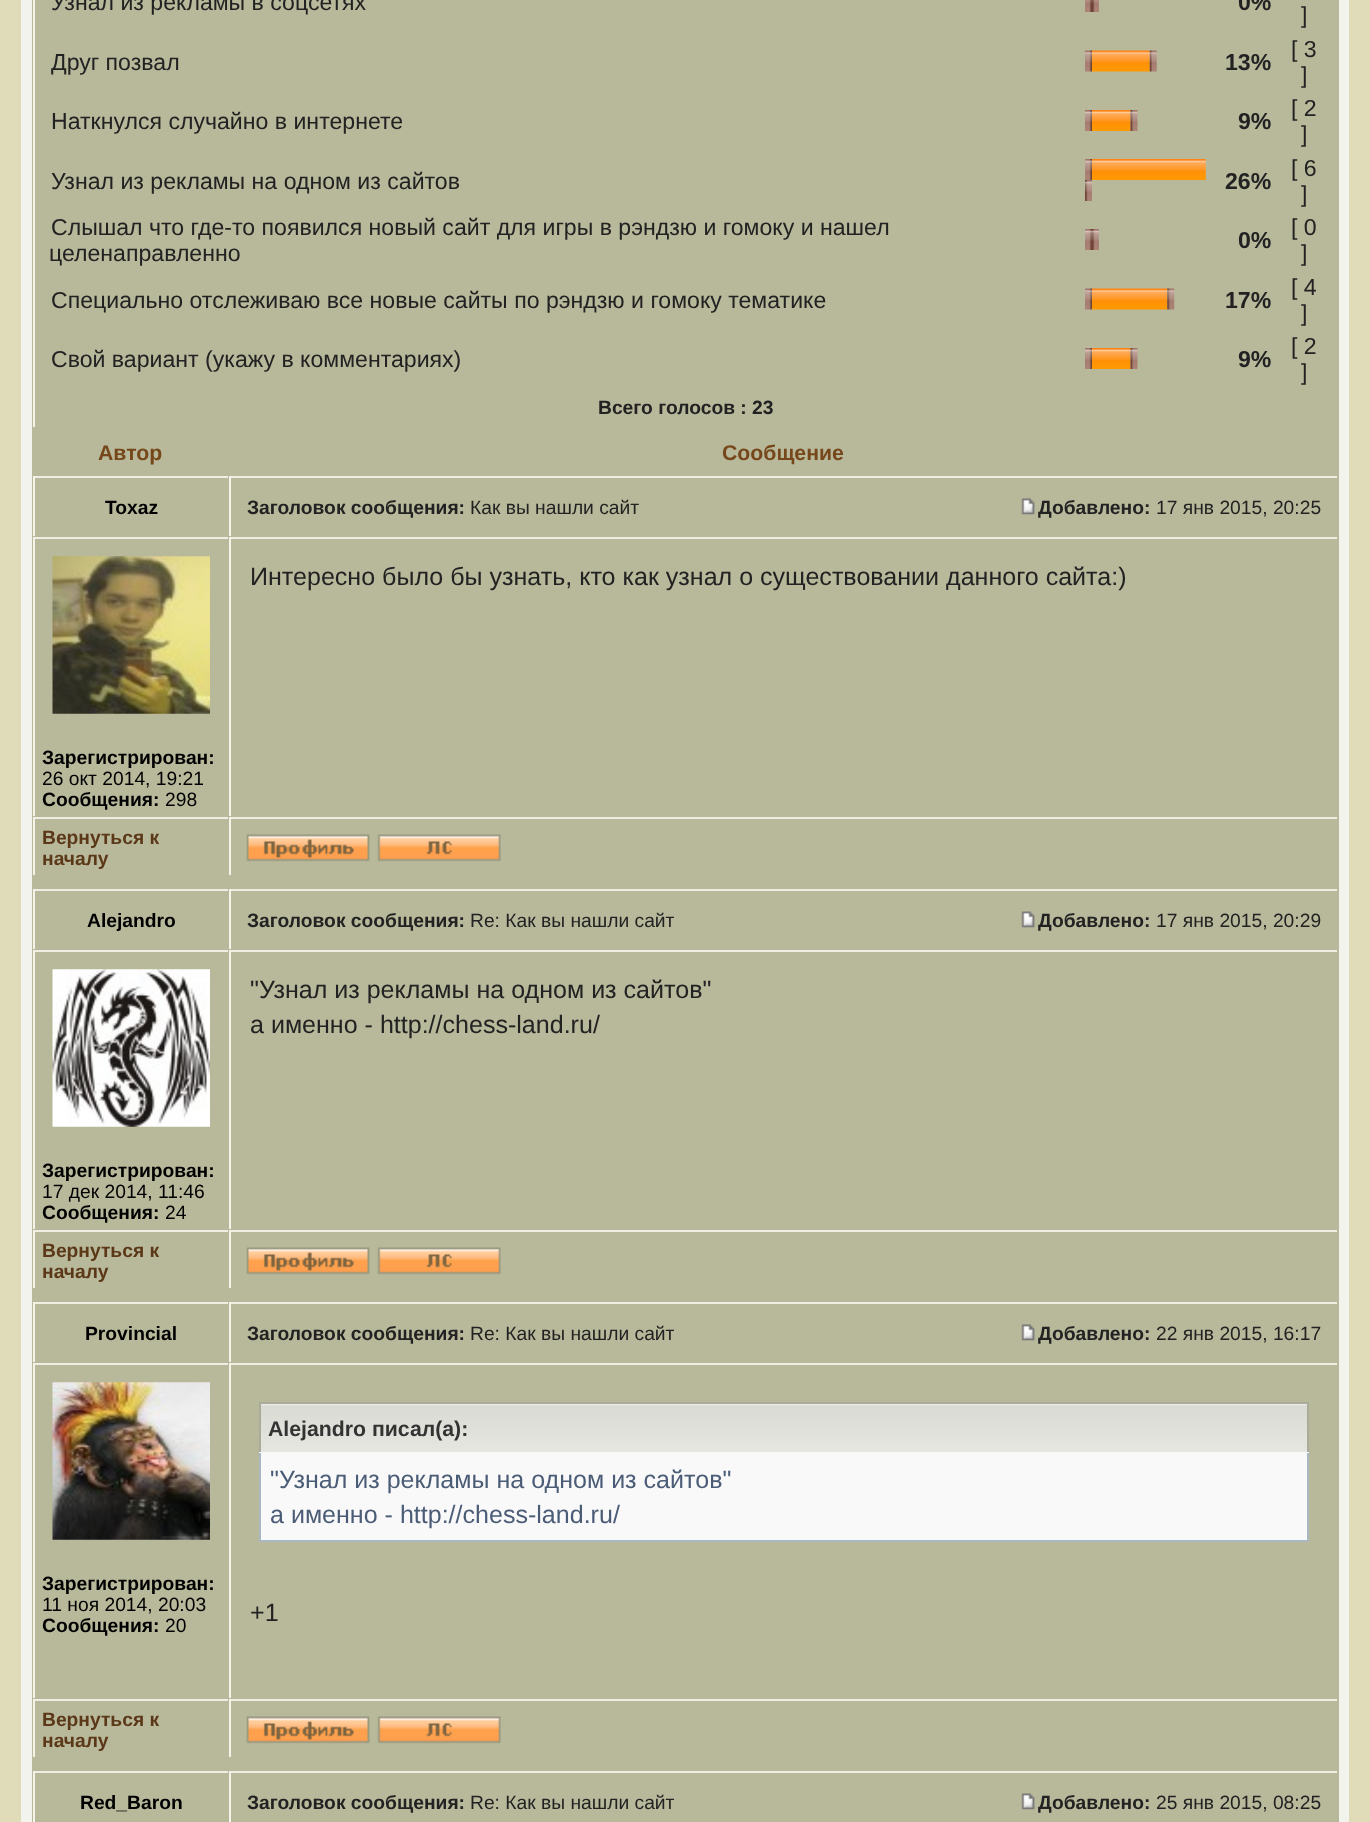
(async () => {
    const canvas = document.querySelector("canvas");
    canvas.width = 1370;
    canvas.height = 1822;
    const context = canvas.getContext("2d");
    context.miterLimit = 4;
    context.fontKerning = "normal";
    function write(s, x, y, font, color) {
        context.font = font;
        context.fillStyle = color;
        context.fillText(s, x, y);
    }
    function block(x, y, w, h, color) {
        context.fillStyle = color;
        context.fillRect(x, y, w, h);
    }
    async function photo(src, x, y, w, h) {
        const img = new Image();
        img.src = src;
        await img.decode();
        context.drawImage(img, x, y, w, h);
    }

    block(0, 0, 1370, 1822, "rgb(224, 220, 186)");
    block(21, 0, 1328, 1822, "rgb(243, 243, 238)");
    block(32, 0, 1307, 1822, "rgb(184, 184, 155)");
    block(33, 0, 2, 427, "rgb(244, 244, 235)");
    write("Узнал из рекламы в соцсетях", 51, 10, "23.1px Liberation Sans", "rgb(34, 34, 34)");
    await photo("media/1.png", 1085, 0, 7, 12);
    await photo("media/2.png", 1092, 0, 7, 12);
    write("0%", 1238, 10, "bold 23.1px Liberation Sans", "rgb(34, 34, 34)");
    write("]", 1301, 23, "23.1px Liberation Sans", "rgb(34, 34, 34)");
    write("Друг позвал", 51, 70, "23.1px Liberation Sans", "rgb(34, 34, 34)");
    await photo("media/3.png", 1085, 50, 7, 22);
    await photo("media/4.png", 1092, 50, 58, 22);
    await photo("media/5.png", 1149, 50, 8, 22);
    write("13%", 1225, 70, "bold 23.1px Liberation Sans", "rgb(34, 34, 34)");
    write("[ 3", 1291, 57, "23.1px Liberation Sans", "rgb(34, 34, 34)");
    write("]", 1301, 83, "23.1px Liberation Sans", "rgb(34, 34, 34)");
    write("Наткнулся случайно в интернете", 51, 129, "23.1px Liberation Sans", "rgb(34, 34, 34)");
    await photo("media/6.png", 1085, 110, 7, 21);
    await photo("media/7.png", 1092, 110, 39, 21);
    await photo("media/8.png", 1130, 110, 8, 21);
    write("9%", 1238, 129, "bold 23.1px Liberation Sans", "rgb(34, 34, 34)");
    write("[ 2", 1291, 116, "23.1px Liberation Sans", "rgb(34, 34, 34)");
    write("]", 1301, 142, "23.1px Liberation Sans", "rgb(34, 34, 34)");
    write("Узнал из рекламы на одном из сайтов", 51, 189, "23.1px Liberation Sans", "rgb(34, 34, 34)");
    await photo("media/6.png", 1085, 159, 7, 21);
    await photo("media/9.png", 1092, 159, 114, 21);
    await photo("media/10.png", 1085, 180, 7, 21);
    write("26%", 1225, 189, "bold 23.1px Liberation Sans", "rgb(34, 34, 34)");
    write("[ 6", 1291, 176, "23.1px Liberation Sans", "rgb(34, 34, 34)");
    write("]", 1301, 202, "23.1px Liberation Sans", "rgb(34, 34, 34)");
    write("Слышал что где-то появился новый сайт для игры в рэндзю и гомоку и нашел", 51, 235, "23.1px Liberation Sans", "rgb(34, 34, 34)");
    write("целенаправленно", 49, 261, "23.1px Liberation Sans", "rgb(34, 34, 34)");
    await photo("media/6.png", 1085, 229, 7, 21);
    await photo("media/10.png", 1092, 229, 7, 21);
    write("0%", 1238, 248, "bold 23.1px Liberation Sans", "rgb(34, 34, 34)");
    write("[ 0", 1291, 235, "23.1px Liberation Sans", "rgb(34, 34, 34)");
    write("]", 1301, 261, "23.1px Liberation Sans", "rgb(34, 34, 34)");
    write("Специально отслеживаю все новые сайты по рэндзю и гомоку тематике", 51, 308, "23.1px Liberation Sans", "rgb(34, 34, 34)");
    await photo("media/3.png", 1085, 288, 7, 22);
    await photo("media/11.png", 1092, 288, 76, 22);
    await photo("media/12.png", 1167, 288, 8, 22);
    write("17%", 1225, 308, "bold 23.1px Liberation Sans", "rgb(34, 34, 34)");
    write("[ 4", 1291, 295, "23.1px Liberation Sans", "rgb(34, 34, 34)");
    write("]", 1301, 321, "23.1px Liberation Sans", "rgb(34, 34, 34)");
    write("Свой вариант (укажу в комментариях)", 51, 367, "23.1px Liberation Sans", "rgb(34, 34, 34)");
    await photo("media/6.png", 1085, 348, 7, 21);
    await photo("media/7.png", 1092, 348, 39, 21);
    await photo("media/8.png", 1130, 348, 8, 21);
    write("9%", 1238, 367, "bold 23.1px Liberation Sans", "rgb(34, 34, 34)");
    write("[ 2", 1291, 354, "23.1px Liberation Sans", "rgb(34, 34, 34)");
    write("]", 1301, 380, "23.1px Liberation Sans", "rgb(34, 34, 34)");
    write("Всего голосов : 23", 598, 414, "bold 19.25px Liberation Sans", "rgb(34, 34, 34)");
    write("Автор", 98, 460, "bold 21.25px Liberation Sans", "rgb(117, 71, 26)");
    write("Сообщение", 722, 460, "bold 21.25px Liberation Sans", "rgb(117, 71, 26)");
    block(33, 476, 195, 2, "rgb(238, 238, 226)");
    block(33, 476, 2, 60, "rgb(244, 244, 235)");
    write("Toxaz", 105, 514, "bold 19.25px Liberation Sans", "rgb(0, 0, 0)");
    block(229, 476, 1108, 2, "rgb(238, 238, 226)");
    block(229, 476, 2, 60, "rgb(244, 244, 235)");
    write("Заголовок сообщения:", 247, 514, "bold 19.25px Liberation Sans", "rgb(34, 34, 34)");
    write("Как вы нашли сайт", 470, 514, "19.25px Liberation Sans", "rgb(34, 34, 34)");
    await photo("media/13.png", 1021, 498, 14, 17);
    write("Добавлено:", 1038, 514, "bold 19.25px Liberation Sans", "rgb(34, 34, 34)");
    write("17 янв 2015, 20:25", 1156, 514, "19.25px Liberation Sans", "rgb(34, 34, 34)");
    block(229, 537, 1108, 2, "rgb(238, 238, 226)");
    block(229, 537, 2, 279, "rgb(244, 244, 235)");
    write("Интересно было бы узнать, кто как узнал о существовании данного сайта:)", 250, 585, "25.05px Liberation Sans", "rgb(34, 34, 34)");
    block(33, 537, 195, 2, "rgb(238, 238, 226)");
    block(33, 537, 2, 279, "rgb(244, 244, 235)");
    await photo("media/14.png", 52, 556, 158, 158);
    write("Зарегистрирован:", 42, 764, "bold 19.25px Liberation Sans", "rgb(0, 0, 0)");
    write("26 окт 2014, 19:21", 42, 785, "19.25px Liberation Sans", "rgb(0, 0, 0)");
    write("Сообщения:", 42, 806, "bold 19.25px Liberation Sans", "rgb(0, 0, 0)");
    write("298", 165, 806, "19.25px Liberation Sans", "rgb(0, 0, 0)");
    block(33, 817, 195, 2, "rgb(238, 238, 226)");
    block(33, 817, 2, 58, "rgb(244, 244, 235)");
    write("Вернуться к", 42, 844, "bold 19.25px Liberation Sans", "rgb(91, 56, 24)");
    write("началу", 42, 865, "bold 19.25px Liberation Sans", "rgb(91, 56, 24)");
    block(229, 817, 1108, 2, "rgb(238, 238, 226)");
    block(229, 817, 2, 58, "rgb(244, 244, 235)");
    await photo("media/15.png", 246, 834, 124, 28);
    await photo("media/16.png", 377, 834, 124, 28);
    block(33, 889, 195, 2, "rgb(238, 238, 226)");
    block(33, 889, 2, 60, "rgb(244, 244, 235)");
    write("Alejandro", 87, 927, "bold 19.25px Liberation Sans", "rgb(0, 0, 0)");
    block(229, 889, 1108, 2, "rgb(238, 238, 226)");
    block(229, 889, 2, 60, "rgb(244, 244, 235)");
    write("Заголовок сообщения:", 247, 927, "bold 19.25px Liberation Sans", "rgb(34, 34, 34)");
    write("Re: Как вы нашли сайт", 470, 927, "19.25px Liberation Sans", "rgb(34, 34, 34)");
    await photo("media/13.png", 1021, 911, 14, 17);
    write("Добавлено:", 1038, 927, "bold 19.25px Liberation Sans", "rgb(34, 34, 34)");
    write("17 янв 2015, 20:29", 1156, 927, "19.25px Liberation Sans", "rgb(34, 34, 34)");
    block(229, 950, 1108, 2, "rgb(238, 238, 226)");
    block(229, 950, 2, 279, "rgb(244, 244, 235)");
    write("\"Узнал из рекламы на одном из сайтов\"", 250, 998, "25.05px Liberation Sans", "rgb(34, 34, 34)");
    write("а именно - http://chess-land.ru/", 250, 1033, "25.05px Liberation Sans", "rgb(34, 34, 34)");
    block(33, 950, 195, 2, "rgb(238, 238, 226)");
    block(33, 950, 2, 279, "rgb(244, 244, 235)");
    await photo("media/17.png", 52, 969, 158, 158);
    write("Зарегистрирован:", 42, 1177, "bold 19.25px Liberation Sans", "rgb(0, 0, 0)");
    write("17 дек 2014, 11:46", 42, 1198, "19.25px Liberation Sans", "rgb(0, 0, 0)");
    write("Сообщения:", 42, 1219, "bold 19.25px Liberation Sans", "rgb(0, 0, 0)");
    write("24", 165, 1219, "19.25px Liberation Sans", "rgb(0, 0, 0)");
    block(33, 1230, 195, 2, "rgb(238, 238, 226)");
    block(33, 1230, 2, 58, "rgb(244, 244, 235)");
    write("Вернуться к", 42, 1257, "bold 19.25px Liberation Sans", "rgb(91, 56, 24)");
    write("началу", 42, 1278, "bold 19.25px Liberation Sans", "rgb(91, 56, 24)");
    block(229, 1230, 1108, 2, "rgb(238, 238, 226)");
    block(229, 1230, 2, 58, "rgb(244, 244, 235)");
    await photo("media/15.png", 246, 1247, 124, 28);
    await photo("media/16.png", 377, 1247, 124, 28);
    block(33, 1302, 195, 2, "rgb(238, 238, 226)");
    block(33, 1302, 2, 60, "rgb(244, 244, 235)");
    write("Provincial", 85, 1340, "bold 19.25px Liberation Sans", "rgb(0, 0, 0)");
    block(229, 1302, 1108, 2, "rgb(238, 238, 226)");
    block(229, 1302, 2, 60, "rgb(244, 244, 235)");
    write("Заголовок сообщения:", 247, 1340, "bold 19.25px Liberation Sans", "rgb(34, 34, 34)");
    write("Re: Как вы нашли сайт", 470, 1340, "19.25px Liberation Sans", "rgb(34, 34, 34)");
    await photo("media/13.png", 1021, 1324, 14, 17);
    write("Добавлено:", 1038, 1340, "bold 19.25px Liberation Sans", "rgb(34, 34, 34)");
    write("22 янв 2015, 16:17", 1156, 1340, "19.25px Liberation Sans", "rgb(34, 34, 34)");
    block(33, 1363, 195, 2, "rgb(238, 238, 226)");
    block(33, 1363, 2, 335, "rgb(244, 244, 235)");
    await photo("media/18.png", 52, 1382, 158, 158);
    write("Зарегистрирован:", 42, 1590, "bold 19.25px Liberation Sans", "rgb(0, 0, 0)");
    write("11 ноя 2014, 20:03", 42, 1611, "19.25px Liberation Sans", "rgb(0, 0, 0)");
    write("Сообщения:", 42, 1632, "bold 19.25px Liberation Sans", "rgb(0, 0, 0)");
    write("20", 165, 1632, "19.25px Liberation Sans", "rgb(0, 0, 0)");
    block(229, 1363, 1108, 2, "rgb(238, 238, 226)");
    block(229, 1363, 2, 335, "rgb(244, 244, 235)");
    await photo("media/19.png", 261, 1404, 1046, 48);
    block(259, 1402, 1050, 2, "rgb(171, 171, 156)");
    block(1307, 1402, 2, 51, "rgb(171, 171, 156)");
    block(259, 1402, 2, 51, "rgb(171, 171, 156)");
    write("Alejandro писал(а):", 268, 1436, "bold 21.25px Liberation Sans", "rgb(51, 51, 51)");
    block(259, 1452, 1050, 88, "rgb(249, 249, 249)");
    block(1307, 1453, 2, 89, "rgb(169, 184, 194)");
    block(259, 1540, 1050, 2, "rgb(169, 184, 194)");
    block(259, 1453, 2, 89, "rgb(169, 184, 194)");
    write("\"Узнал из рекламы на одном из сайтов\"", 270, 1488, "25.05px Liberation Sans", "rgb(75, 92, 119)");
    write("а именно - http://chess-land.ru/", 270, 1523, "25.05px Liberation Sans", "rgb(75, 92, 119)");
    write("+1", 250, 1621, "25.05px Liberation Sans", "rgb(34, 34, 34)");
    block(33, 1699, 195, 2, "rgb(238, 238, 226)");
    block(33, 1699, 2, 58, "rgb(244, 244, 235)");
    write("Вернуться к", 42, 1726, "bold 19.25px Liberation Sans", "rgb(91, 56, 24)");
    write("началу", 42, 1747, "bold 19.25px Liberation Sans", "rgb(91, 56, 24)");
    block(229, 1699, 1108, 2, "rgb(238, 238, 226)");
    block(229, 1699, 2, 58, "rgb(244, 244, 235)");
    await photo("media/15.png", 246, 1716, 124, 28);
    await photo("media/16.png", 377, 1716, 124, 28);
    block(33, 1771, 195, 2, "rgb(238, 238, 226)");
    block(33, 1771, 2, 51, "rgb(244, 244, 235)");
    write("Red_Baron", 80, 1809, "bold 19.25px Liberation Sans", "rgb(0, 0, 0)");
    block(229, 1771, 1108, 2, "rgb(238, 238, 226)");
    block(229, 1771, 2, 51, "rgb(244, 244, 235)");
    write("Заголовок сообщения:", 247, 1809, "bold 19.25px Liberation Sans", "rgb(34, 34, 34)");
    write("Re: Как вы нашли сайт", 470, 1809, "19.25px Liberation Sans", "rgb(34, 34, 34)");
    await photo("media/13.png", 1021, 1793, 14, 17);
    write("Добавлено:", 1038, 1809, "bold 19.25px Liberation Sans", "rgb(34, 34, 34)");
    write("25 янв 2015, 08:25", 1156, 1809, "19.25px Liberation Sans", "rgb(34, 34, 34)");
})();
